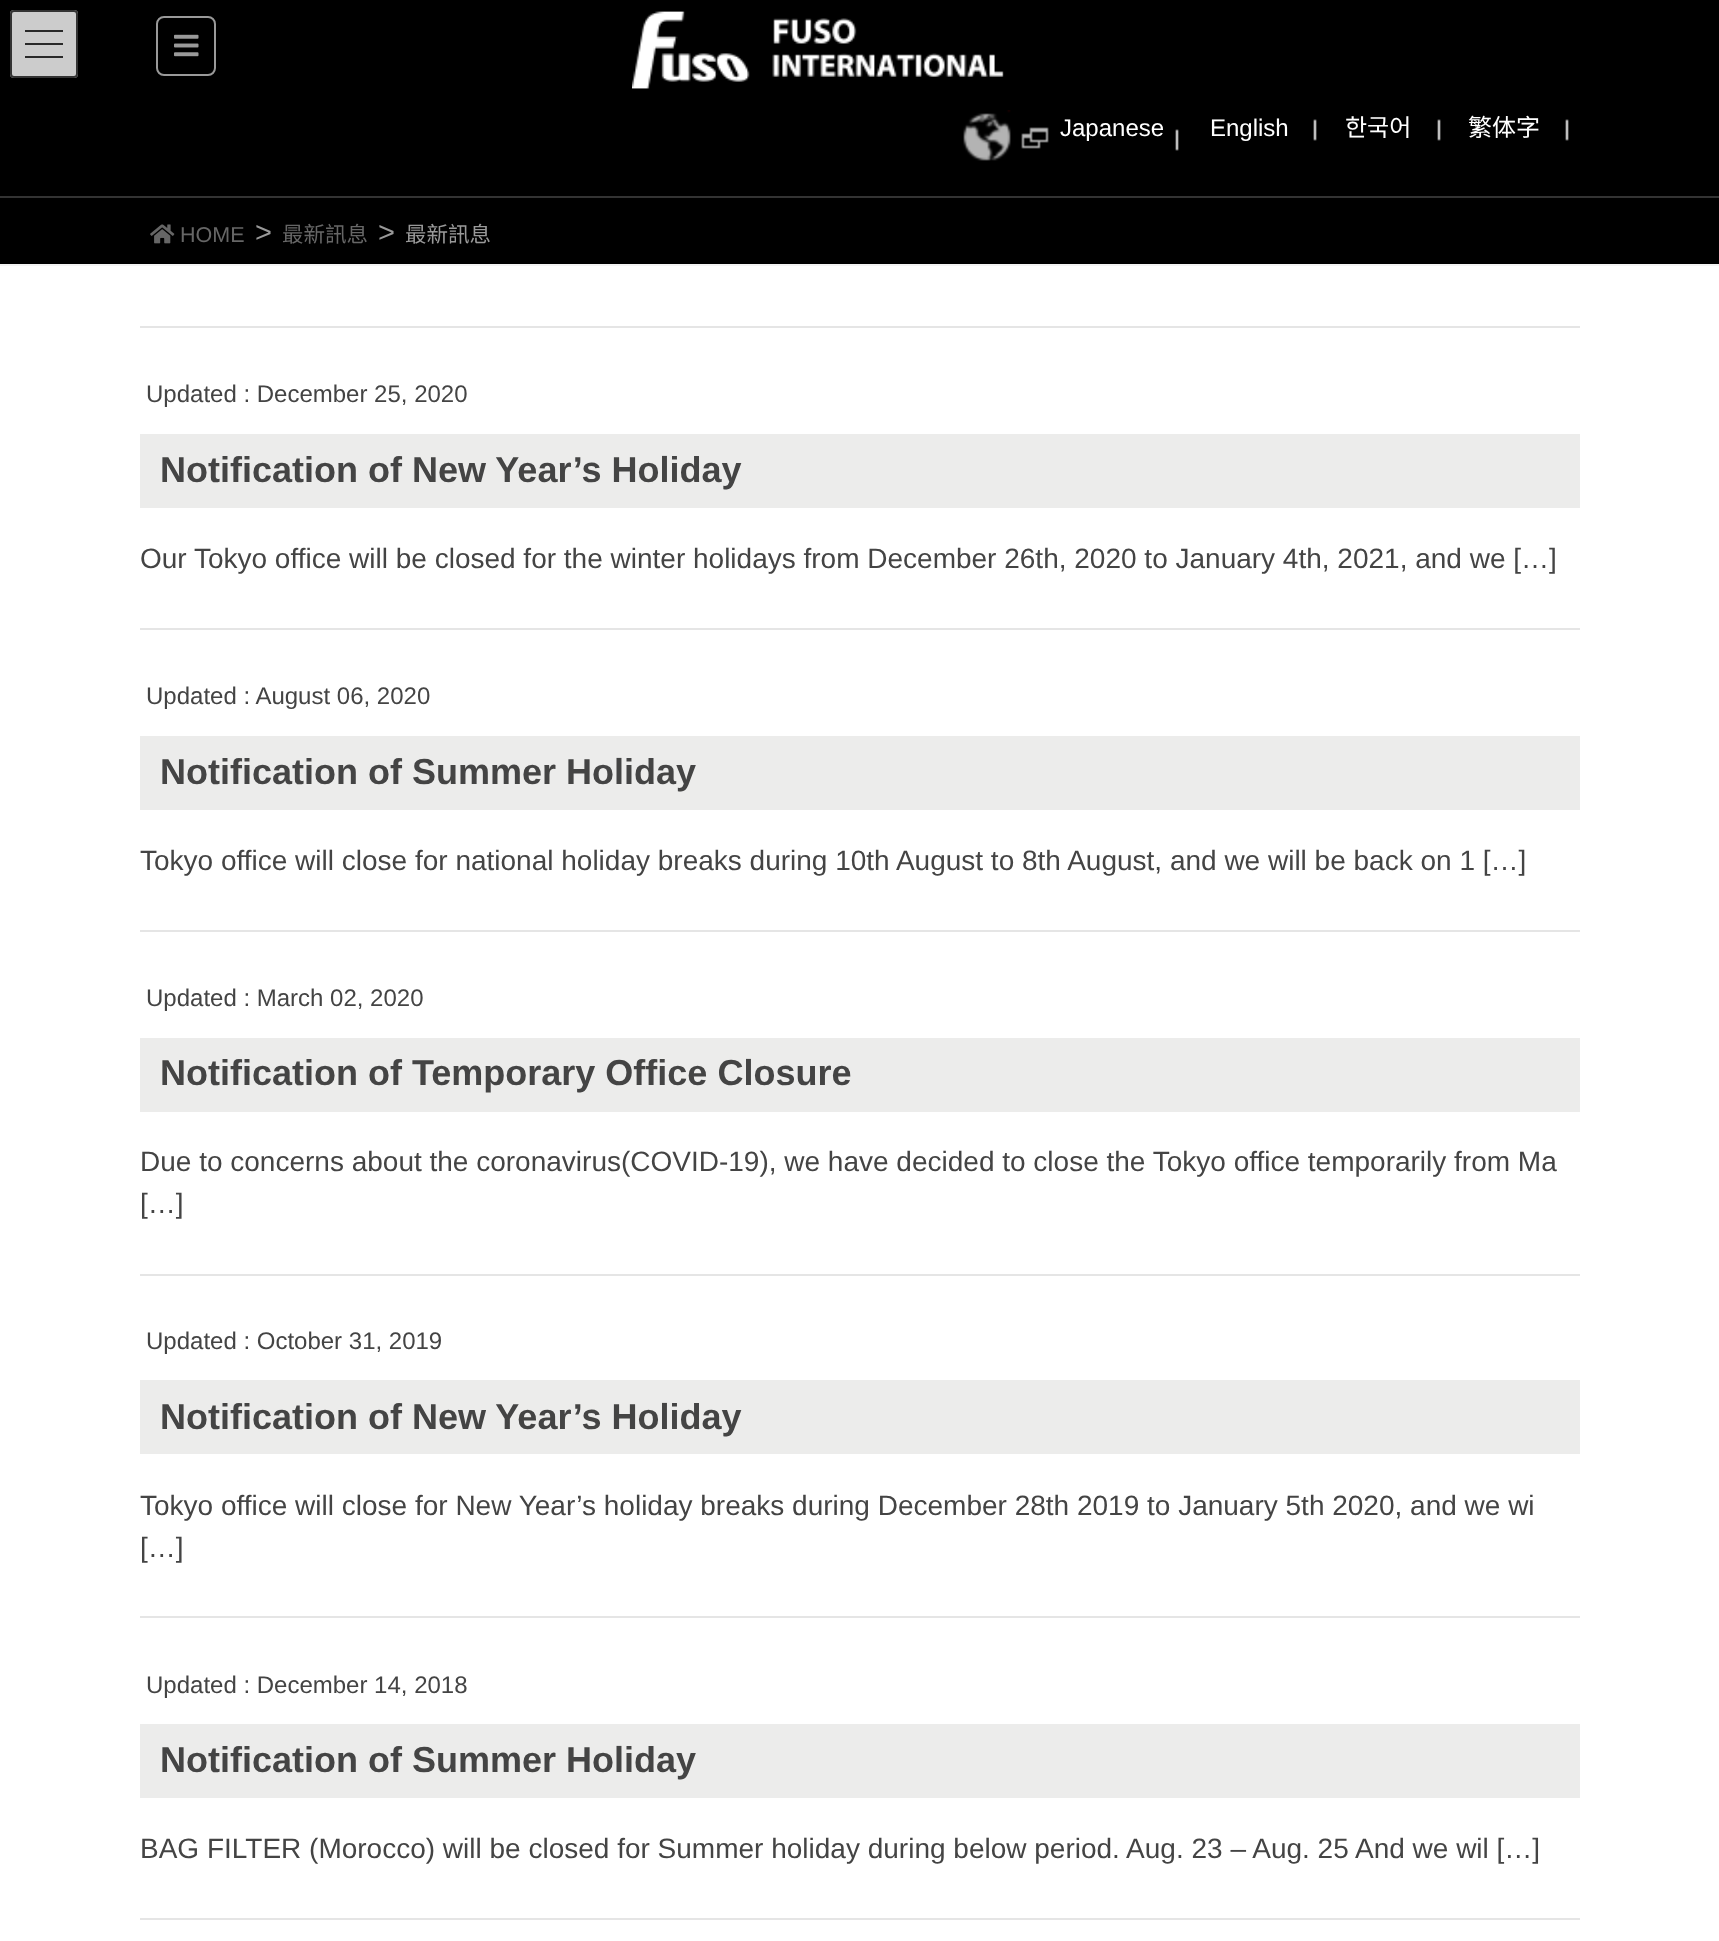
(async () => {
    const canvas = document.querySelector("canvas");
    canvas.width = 1719;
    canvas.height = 1941;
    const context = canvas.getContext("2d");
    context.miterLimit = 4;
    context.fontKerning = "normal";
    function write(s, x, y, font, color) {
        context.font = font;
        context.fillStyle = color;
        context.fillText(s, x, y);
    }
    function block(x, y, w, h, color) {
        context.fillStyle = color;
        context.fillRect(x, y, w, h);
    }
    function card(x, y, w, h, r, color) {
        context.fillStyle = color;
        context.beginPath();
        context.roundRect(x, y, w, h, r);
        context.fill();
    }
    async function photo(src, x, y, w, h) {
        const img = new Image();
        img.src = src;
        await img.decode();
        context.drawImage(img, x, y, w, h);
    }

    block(0, 0, 1719, 1941, "rgb(0, 0, 0)");
    card(10, 10, 68, 68, 4, "rgb(204, 204, 204)");
    block(25, 30, 38, 2, "rgb(41, 41, 41)");
    block(25, 43, 38, 2, "rgb(41, 41, 41)");
    block(25, 56, 38, 2, "rgb(41, 41, 41)");
    context.beginPath();
    context.roundRect(11, 11, 66, 66, 3);
    context.strokeStyle = "rgb(51, 51, 51)";
    context.lineWidth = 2;
    context.stroke();
    block(0, 196, 1719, 2, "rgb(51, 51, 51)");
    context.beginPath();
    context.roundRect(157, 17, 58, 58, 7);
    context.strokeStyle = "rgb(153, 153, 153)";
    context.stroke();
    await photo("media/1.png", 174, 34, 25, 23);
    await photo("media/2.png", 632, 11, 372, 78);
    await photo("media/3.png", 963, 110, 48, 51);
    await photo("media/4.png", 1021, 127, 28, 22);
    write("Japanese", 1060, 136, "24px Liberation Sans", "rgb(255, 255, 255)");
    await photo("media/5.png", 1175, 129, 4, 22);
    await photo("media/5.png", 1313, 119, 4, 22);
    write("English", 1210, 136, "24px Liberation Sans", "rgb(255, 255, 255)");
    await photo("media/5.png", 1437, 119, 4, 22);
    write("한국어", 1345, 136, "24px Noto Sans CJK TC", "rgb(255, 255, 255)");
    await photo("media/5.png", 1565, 119, 4, 22);
    write("繁体字", 1468, 136, "24px Noto Sans CJK TC", "rgb(255, 255, 255)");
    block(0, 264, 1719, 2, "rgb(243, 243, 243)");
    await photo("media/6.png", 150, 224, 25, 20);
    write("HOME", 180, 242, "21.5px Liberation Sans", "rgb(102, 102, 102)");
    write(">", 255, 242, "29px Liberation Sans", "rgb(153, 153, 153)");
    write("最新訊息", 282, 242, "21.5px Noto Sans CJK TC", "rgb(102, 102, 102)");
    write(">", 378, 242, "29px Liberation Sans", "rgb(153, 153, 153)");
    write("最新訊息", 405, 242, "21.5px Noto Sans CJK TC", "rgb(153, 153, 153)");
    block(0, 266, 1719, 1675, "rgb(255, 255, 255)");
    block(140, 326, 1440, 2, "rgb(229, 229, 229)");
    block(140, 628, 1440, 2, "rgb(229, 229, 229)");
    write("Updated : December 25, 2020", 146, 402, "24px Liberation Sans", "rgb(68, 68, 68)");
    block(140, 434, 1440, 74, "rgb(236, 236, 235)");
    write("Notification of New Year’s Holiday", 160, 482, "bold 36px Liberation Sans", "rgb(68, 68, 68)");
    write("Our Tokyo office will be closed for the winter holidays from December 26th, 2020 to January 4th, 2021, and we […]", 140, 568, "28px Liberation Sans", "rgb(68, 68, 68)");
    block(140, 930, 1440, 2, "rgb(229, 229, 229)");
    write("Updated : August 06, 2020", 146, 704, "24px Liberation Sans", "rgb(68, 68, 68)");
    block(140, 736, 1440, 74, "rgb(236, 236, 235)");
    write("Notification of Summer Holiday", 160, 784, "bold 36px Liberation Sans", "rgb(68, 68, 68)");
    write("Tokyo office will close for national holiday breaks during 10th August to 8th August, and we will be back on 1 […]", 140, 870, "28px Liberation Sans", "rgb(68, 68, 68)");
    block(140, 1274, 1440, 2, "rgb(229, 229, 229)");
    write("Updated : March 02, 2020", 146, 1006, "24px Liberation Sans", "rgb(68, 68, 68)");
    block(140, 1038, 1440, 74, "rgb(236, 236, 235)");
    write("Notification of Temporary Office Closure", 160, 1085, "bold 36px Liberation Sans", "rgb(68, 68, 68)");
    write("Due to concerns about the coronavirus(COVID-19), we have decided to close the Tokyo office temporarily from Ma", 140, 1171, "28px Liberation Sans", "rgb(68, 68, 68)");
    write("[…]", 140, 1213, "28px Liberation Sans", "rgb(68, 68, 68)");
    block(140, 1616, 1440, 2, "rgb(229, 229, 229)");
    write("Updated : October 31, 2019", 146, 1349, "24px Liberation Sans", "rgb(68, 68, 68)");
    block(140, 1380, 1440, 74, "rgb(236, 236, 235)");
    write("Notification of New Year’s Holiday", 160, 1429, "bold 36px Liberation Sans", "rgb(68, 68, 68)");
    write("Tokyo office will close for New Year’s holiday breaks during December 28th 2019 to January 5th 2020, and we wi", 140, 1515, "28px Liberation Sans", "rgb(68, 68, 68)");
    write("[…]", 140, 1557, "28px Liberation Sans", "rgb(68, 68, 68)");
    block(140, 1918, 1440, 2, "rgb(229, 229, 229)");
    write("Updated : December 14, 2018", 146, 1693, "24px Liberation Sans", "rgb(68, 68, 68)");
    block(140, 1724, 1440, 74, "rgb(236, 236, 235)");
    write("Notification of Summer Holiday", 160, 1772, "bold 36px Liberation Sans", "rgb(68, 68, 68)");
    write("BAG FILTER (Morocco) will be closed for Summer holiday during below period. Aug. 23 – Aug. 25 And we wil […]", 140, 1858, "28px Liberation Sans", "rgb(68, 68, 68)");
})();
